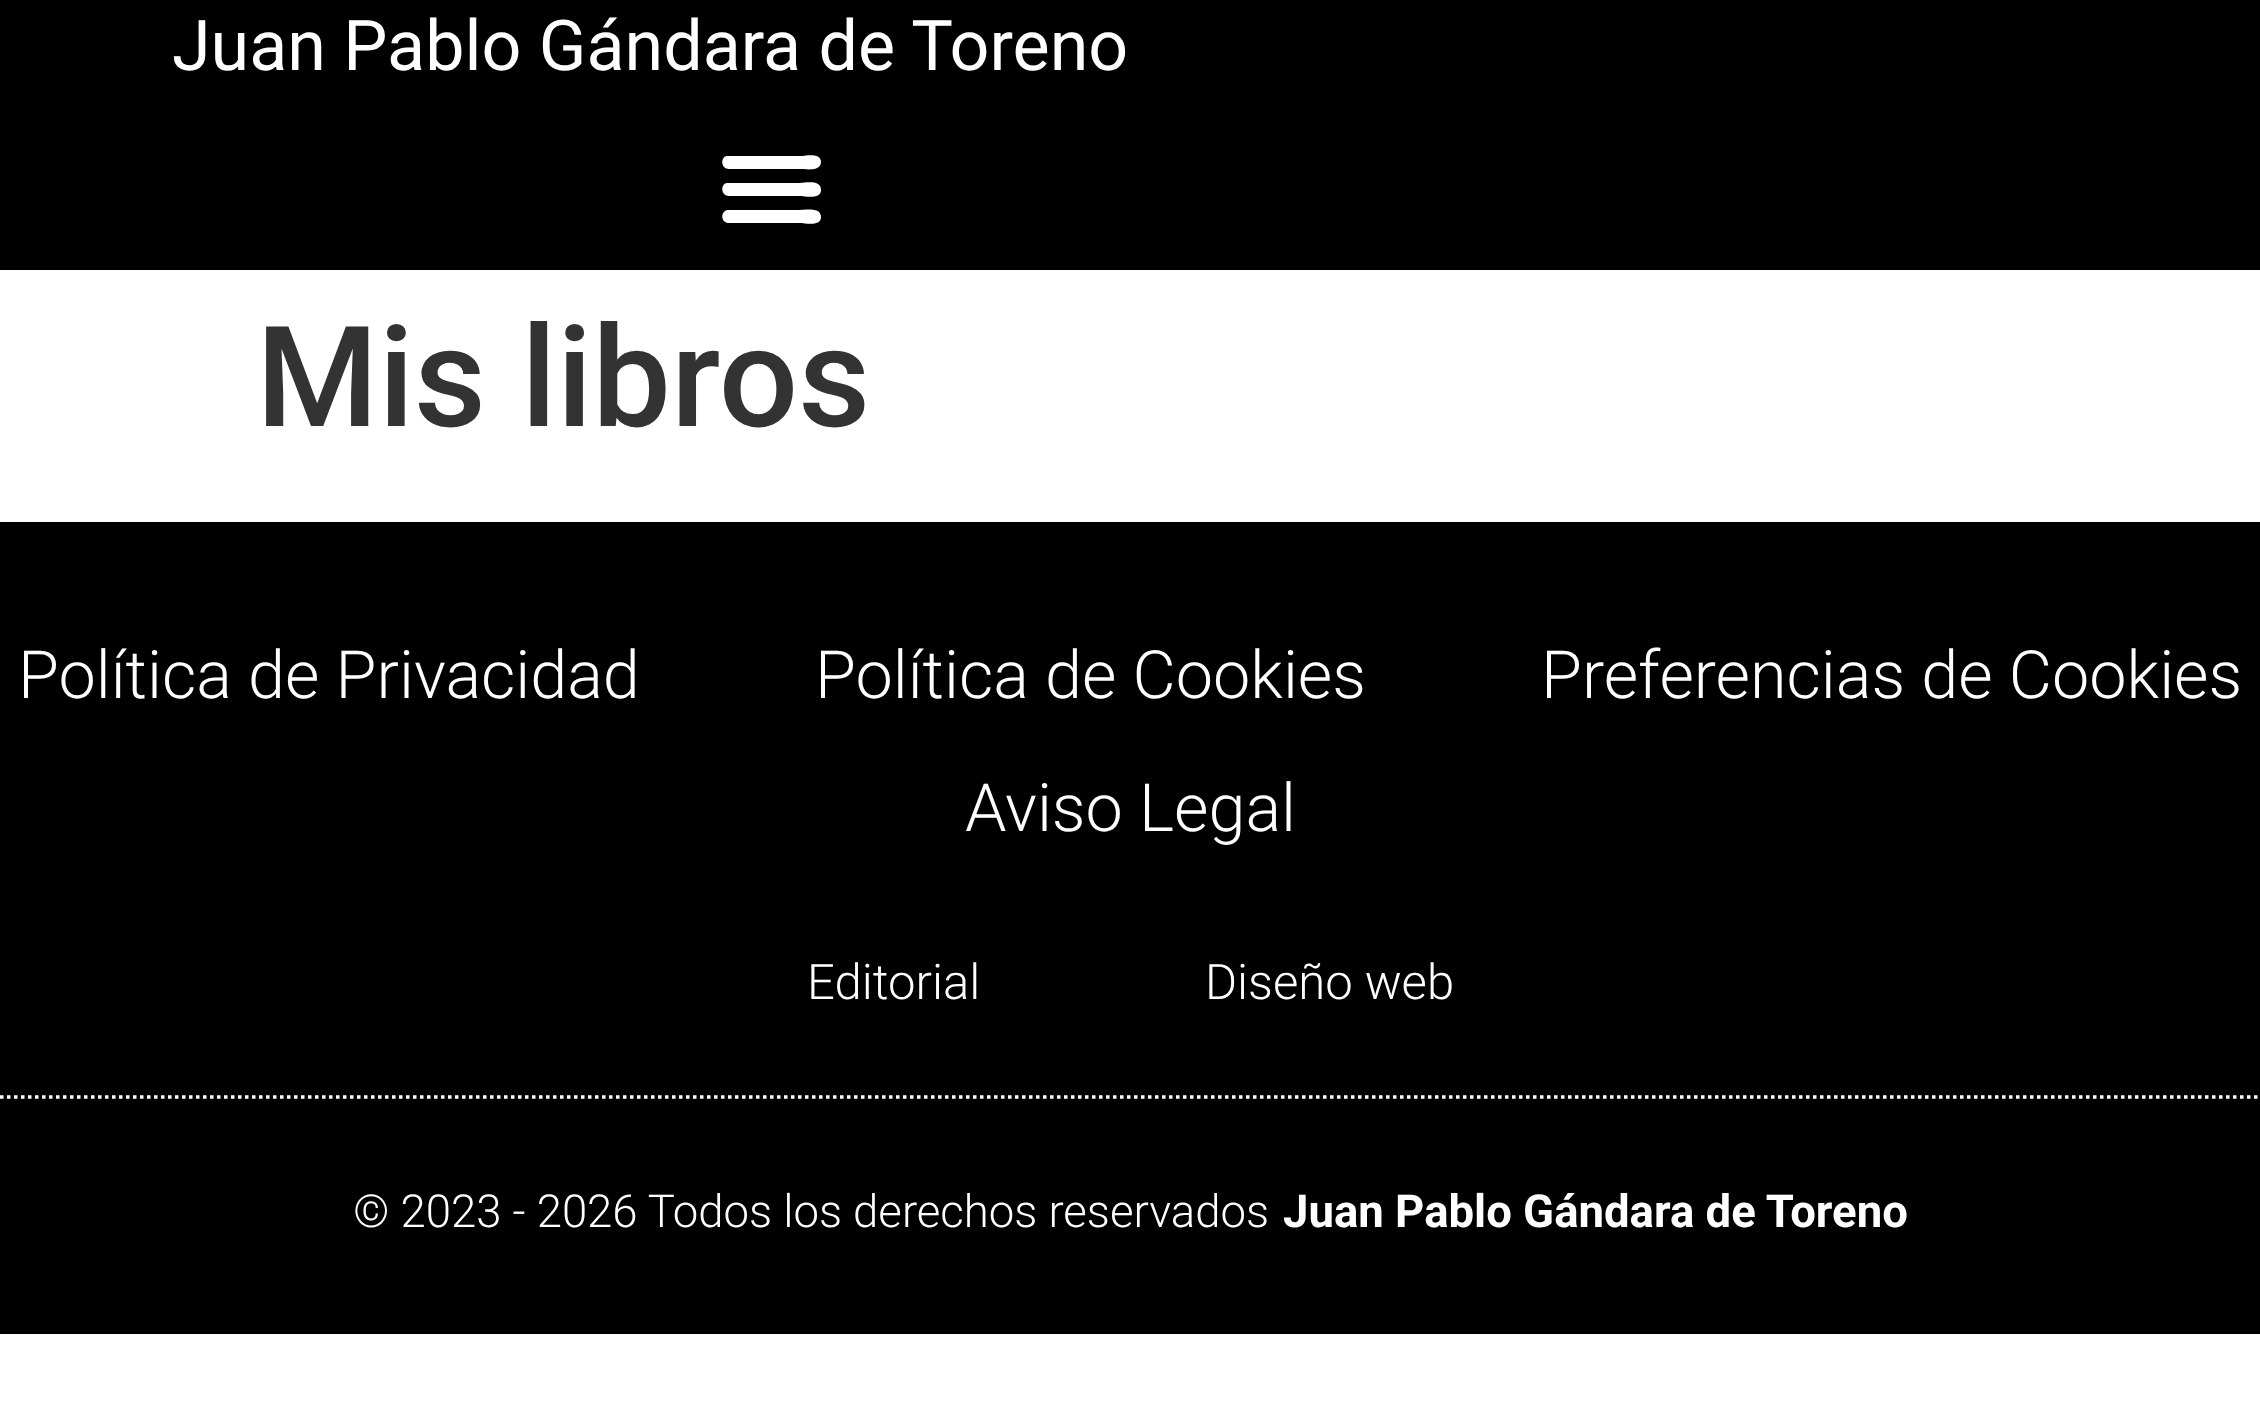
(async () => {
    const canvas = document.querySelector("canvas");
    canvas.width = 2260;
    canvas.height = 1412;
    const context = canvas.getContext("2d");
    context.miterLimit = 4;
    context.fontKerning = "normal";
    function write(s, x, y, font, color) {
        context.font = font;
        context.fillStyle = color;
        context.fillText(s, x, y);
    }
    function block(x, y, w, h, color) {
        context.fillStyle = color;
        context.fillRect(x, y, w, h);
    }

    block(0, 0, 2260, 1412, "rgb(255, 255, 255)");
    block(0, 0, 2260, 270, "rgb(0, 0, 0)");
    write("Juan Pablo Gándara de Toreno", 172, 70, "70px Roboto", "rgb(255, 255, 255)");
    context.beginPath();
    context.moveTo(729, 169);
    context.lineTo(800, 169);
    context.bezierCurveTo(805, 169, 821, 172, 821, 162);
    context.bezierCurveTo(821, 152, 805, 156, 800, 156);
    context.lineTo(727, 156);
    context.bezierCurveTo(720, 157, 721, 169, 729, 169);
    context.closePath();
    context.moveTo(729, 196);
    context.lineTo(800, 196);
    context.bezierCurveTo(805, 196, 821, 200, 821, 190);
    context.bezierCurveTo(821, 179, 805, 183, 800, 183);
    context.lineTo(727, 183);
    context.bezierCurveTo(720, 184, 721, 196, 729, 196);
    context.closePath();
    context.moveTo(729, 223);
    context.lineTo(800, 223);
    context.bezierCurveTo(805, 223, 821, 227, 821, 217);
    context.bezierCurveTo(821, 207, 805, 210, 800, 210);
    context.lineTo(727, 210);
    context.bezierCurveTo(720, 212, 721, 223, 729, 223);
    context.closePath();
    context.fill();
    write("Mis libros", 256, 426, "500 140px Roboto", "rgb(51, 51, 51)");
    block(0, 522, 2260, 812, "rgb(0, 0, 0)");
    write("Política de Privacidad", 18, 698, "300 66.5px Roboto", "rgb(255, 255, 255)");
    write("Política de Cookies", 815, 698, "300 66.5px Roboto", "rgb(255, 255, 255)");
    write("Preferencias de Cookies", 1541, 698, "300 66.5px Roboto", "rgb(255, 255, 255)");
    write("Aviso Legal", 965, 831, "300 66.5px Roboto", "rgb(255, 255, 255)");
    write("Editorial", 807, 999, "300 49px Roboto", "rgb(255, 255, 255)");
    write("Diseño web", 1205, 999, "300 49px Roboto", "rgb(255, 255, 255)");
    context.beginPath();
    context.moveTo(0, 1097);
    context.lineTo(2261, 1097);
    context.strokeStyle = "rgb(255, 255, 255)";
    context.lineWidth = 3.5;
    context.setLineDash([3.5, 3.5]);
    context.stroke();
    write("© 2023 - 2026 Todos los derechos reservados", 353, 1227, "300 45.5px Roboto", "rgb(255, 255, 255)");
    write("Juan Pablo Gándara de Toreno", 1283, 1227, "bold 45.5px Roboto", "rgb(255, 255, 255)");
})();
